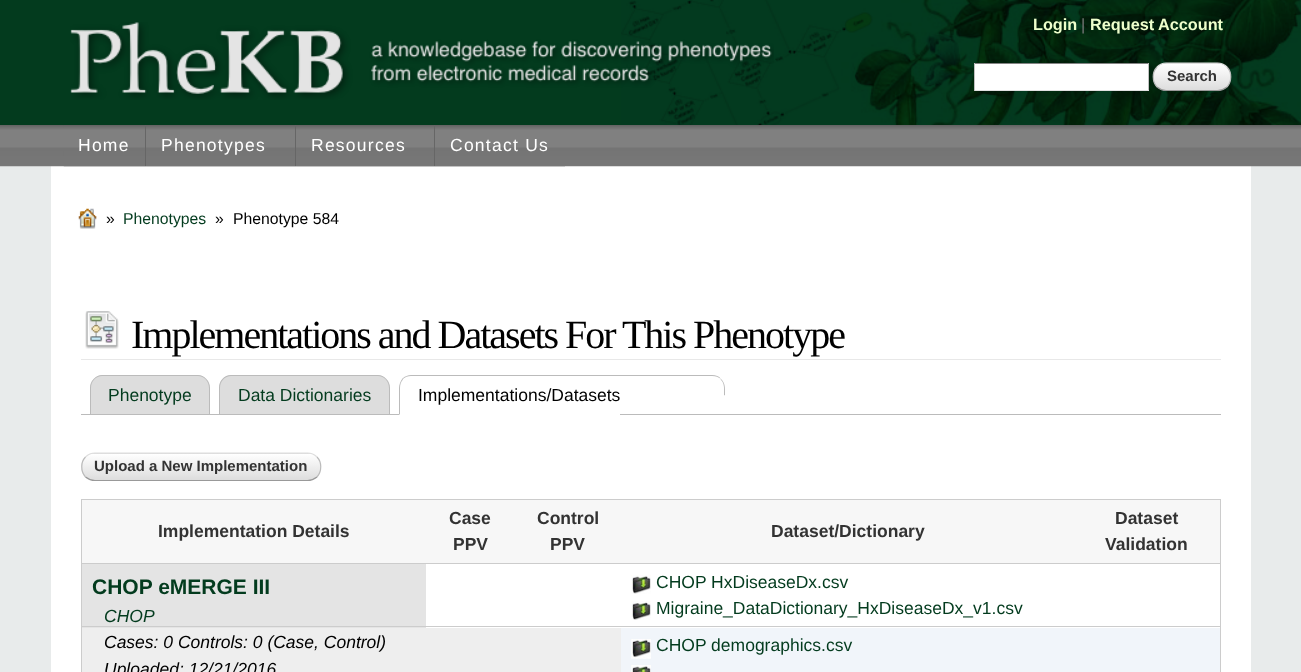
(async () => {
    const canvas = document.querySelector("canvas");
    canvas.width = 1301;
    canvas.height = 672;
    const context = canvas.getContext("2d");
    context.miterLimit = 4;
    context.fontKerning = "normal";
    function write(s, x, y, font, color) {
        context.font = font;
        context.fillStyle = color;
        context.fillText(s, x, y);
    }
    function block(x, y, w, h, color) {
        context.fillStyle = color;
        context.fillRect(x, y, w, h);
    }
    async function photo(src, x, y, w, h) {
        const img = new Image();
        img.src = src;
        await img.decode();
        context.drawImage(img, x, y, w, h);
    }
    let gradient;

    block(0, 0, 1301, 672, "rgb(232, 235, 235)");
    await photo("media/1.png", 621, 0, 680, 125);
    write("Login", 1033, 30, "bold 16.25px Liberation Sans", "rgb(238, 255, 204)");
    write("|", 1081, 30, "16.25px Liberation Sans", "rgb(119, 119, 119)");
    write("Request Account", 1090, 30, "bold 16.25px Liberation Sans", "rgb(238, 255, 204)");
    block(0, 0, 621, 125, "rgb(3, 59, 30)");
    await photo("media/2.png", 70, 22, 704, 78);
    block(975, 64, 173, 26, "rgb(255, 255, 255)");
    block(974, 63, 175, 1, "rgb(132, 132, 132)");
    block(1148, 63, 1, 28, "rgb(193, 193, 193)");
    block(974, 90, 175, 1, "rgb(225, 225, 225)");
    block(974, 63, 1, 28, "rgb(193, 193, 193)");
    context.save();
    context.beginPath();
    context.roundRect(1153, 63, 78, 28, 14);
    context.clip();
    gradient = context.createLinearGradient(1154, 38, 1154, 64);
    gradient.addColorStop(0, "rgb(255, 255, 255)");
    gradient.addColorStop(1, "rgb(221, 221, 221)");
    context.fillStyle = gradient;
    context.fillRect(1162, 63, 60, 1);
    gradient = context.createLinearGradient(1154, 64, 1154, 90);
    gradient.addColorStop(0, "rgb(255, 255, 255)");
    gradient.addColorStop(1, "rgb(221, 221, 221)");
    context.fillStyle = gradient;
    context.fillRect(1153, 64, 78, 26);
    context.restore();
    context.beginPath();
    context.moveTo(1157, 67);
    context.bezierCurveTo(1159.5, 64.5, 1163, 63, 1166, 63);
    context.lineTo(1217.5, 63);
    context.bezierCurveTo(1221, 63, 1224.5, 64.5, 1227, 67);
    context.strokeStyle = "rgb(221, 221, 221)";
    context.lineWidth = 1.2;
    context.stroke();
    context.beginPath();
    context.moveTo(1227, 67);
    context.bezierCurveTo(1232, 72, 1232, 81.5, 1227, 87);
    context.strokeStyle = "rgb(187, 187, 187)";
    context.stroke();
    context.beginPath();
    context.moveTo(1227, 87);
    context.bezierCurveTo(1224.5, 89, 1221, 90.5, 1217.5, 90.5);
    context.lineTo(1166, 90.5);
    context.bezierCurveTo(1163, 90.5, 1159.5, 89, 1157, 87);
    context.strokeStyle = "rgb(153, 153, 153)";
    context.stroke();
    context.beginPath();
    context.moveTo(1157, 87);
    context.bezierCurveTo(1152, 81.5, 1152, 72, 1157, 67);
    context.strokeStyle = "rgb(187, 187, 187)";
    context.stroke();
    write("Search", 1167, 81, "bold 15px Liberation Sans", "rgb(51, 51, 51)");
    block(51, 166, 1200, 506, "rgb(255, 255, 255)");
    await photo("media/3.png", 0, 125, 1301, 42);
    await photo("media/4.png", 63, 125, 84, 42);
    block(145, 125, 1, 41, "rgb(102, 102, 102)");
    context.letterSpacing = "1.25px";
    write("Home", 78, 151, "17.5px Liberation Sans", "rgb(255, 255, 255)");
    await photo("media/5.png", 146, 125, 151, 42);
    block(295, 125, 1, 41, "rgb(102, 102, 102)");
    write("Phenotypes", 161, 151, "17.5px Liberation Sans", "rgb(255, 255, 255)");
    await photo("media/6.png", 296, 125, 139, 42);
    block(434, 125, 1, 41, "rgb(102, 102, 102)");
    write("Resources", 311, 151, "17.5px Liberation Sans", "rgb(255, 255, 255)");
    await photo("media/7.png", 435, 125, 130, 42);
    write("Contact Us", 450, 151, "17.5px Liberation Sans", "rgb(255, 255, 255)");
    await photo("media/8.png", 78, 208, 19, 21);
    context.letterSpacing = "0px";
    write("»", 106, 224, "15.75px Liberation Sans", "rgb(0, 0, 0)");
    write("Phenotypes", 123, 224, "15.75px Liberation Sans", "rgb(3, 59, 30)");
    write("»", 215, 224, "15.75px Liberation Sans", "rgb(0, 0, 0)");
    write("Phenotype 584", 233, 224, "15.75px Liberation Sans", "rgb(0, 0, 0)");
    await photo("media/9.png", 85, 311, 34, 38);
    block(81, 359, 1140, 1, "rgb(232, 232, 232)");
    context.letterSpacing = "-2px";
    write("Implementations and Datasets For This Phenotype", 131, 348, "40px Liberation Serif", "rgb(0, 0, 0)");
    block(81, 414, 1140, 1, "rgb(187, 187, 187)");
    context.fillStyle = "rgb(221, 221, 221)";
    context.beginPath();
    context.roundRect(90, 375, 120, 39, [13, 13, 0, 0]);
    context.fill();
    context.fillStyle = "rgb(187, 187, 187)";
    context.beginPath();
    context.moveTo(102, 375);
    context.lineTo(198, 375);
    context.bezierCurveTo(204, 375, 210, 381, 210, 388);
    context.lineTo(210, 414);
    context.lineTo(90, 414);
    context.lineTo(90, 388);
    context.bezierCurveTo(90, 381, 96, 375, 102, 375);
    context.closePath();
    context.moveTo(102, 376);
    context.lineTo(198, 376);
    context.bezierCurveTo(204, 376, 209, 381, 209, 388);
    context.lineTo(209, 414);
    context.lineTo(91, 414);
    context.lineTo(91, 388);
    context.bezierCurveTo(91, 381, 96, 376, 102, 376);
    context.closePath();
    context.fill("evenodd");
    context.letterSpacing = "0px";
    write("Phenotype", 108, 401, "17.5px Liberation Sans", "rgb(3, 59, 30)");
    context.fillStyle = "rgb(221, 221, 221)";
    context.beginPath();
    context.roundRect(219, 375, 171, 39, [13, 13, 0, 0]);
    context.fill();
    context.fillStyle = "rgb(187, 187, 187)";
    context.beginPath();
    context.moveTo(231, 375);
    context.lineTo(378, 375);
    context.bezierCurveTo(384, 375, 390, 381, 390, 388);
    context.lineTo(390, 414);
    context.lineTo(219, 414);
    context.lineTo(219, 388);
    context.bezierCurveTo(219, 381, 224, 375, 231, 375);
    context.closePath();
    context.moveTo(231, 376);
    context.lineTo(378, 376);
    context.bezierCurveTo(384, 376, 389, 381, 389, 388);
    context.lineTo(389, 414);
    context.lineTo(220, 414);
    context.lineTo(220, 388);
    context.bezierCurveTo(220, 381, 225, 376, 231, 376);
    context.closePath();
    context.fill("evenodd");
    write("Data Dictionaries", 238, 401, "17.5px Liberation Sans", "rgb(3, 59, 30)");
    context.fillStyle = "rgb(255, 255, 255)";
    context.beginPath();
    context.roundRect(399, 375, 221, 40, [13, 0, 0, 0]);
    context.fill();
    write("Implementations/Datasets", 418, 401, "17.5px Liberation Sans", "rgb(0, 0, 0)");
    context.fillStyle = "rgb(187, 187, 187)";
    context.beginPath();
    context.moveTo(411, 375);
    context.lineTo(620, 375);
    context.lineTo(620, 376);
    context.lineTo(411, 376);
    context.bezierCurveTo(408, 376, 405, 377, 403, 379);
    context.lineTo(402, 379);
    context.bezierCurveTo(405, 376, 408, 375, 411, 375);
    context.closePath();
    context.fill();
    context.beginPath();
    context.moveTo(400, 414);
    context.lineTo(399, 415);
    context.lineTo(399, 388);
    context.bezierCurveTo(399, 384.5, 400.5, 381, 402.5, 378.5);
    context.lineTo(403, 379.5);
    context.bezierCurveTo(401, 381.5, 400, 384.5, 400, 388);
    context.closePath();
    context.fill();
    context.beginPath();
    context.moveTo(620, 375);
    context.lineTo(620, 376);
    context.lineTo(712, 376);
    context.bezierCurveTo(716, 376, 718, 377, 721, 379);
    context.bezierCurveTo(719, 376, 716, 375, 712, 375);
    context.closePath();
    context.fill();
    context.beginPath();
    context.moveTo(724, 395);
    context.bezierCurveTo(724, 389.5, 725, 383.5, 720.5, 379.5);
    context.lineTo(721, 379);
    context.bezierCurveTo(726, 383.5, 725, 390, 725, 396);
    context.closePath();
    context.fill();
    context.fillStyle = "rgb(255, 255, 255)";
    context.beginPath();
    context.moveTo(620, 395);
    context.lineTo(620, 396);
    context.lineTo(725, 396);
    context.lineTo(724, 395);
    context.closePath();
    context.fill();
    context.save();
    context.beginPath();
    context.roundRect(81, 453, 240, 28, 14);
    context.clip();
    gradient = context.createLinearGradient(83, 428, 83, 454);
    gradient.addColorStop(0, "rgb(255, 255, 255)");
    gradient.addColorStop(1, "rgb(221, 221, 221)");
    context.fillStyle = gradient;
    context.fillRect(90, 453, 222, 1);
    gradient = context.createLinearGradient(83, 454, 83, 480);
    gradient.addColorStop(0, "rgb(255, 255, 255)");
    gradient.addColorStop(1, "rgb(221, 221, 221)");
    context.fillStyle = gradient;
    context.fillRect(81, 454, 240, 26);
    context.restore();
    context.beginPath();
    context.moveTo(85.5, 457);
    context.bezierCurveTo(88, 454.5, 91.5, 453, 95, 453);
    context.lineTo(307.5, 453);
    context.bezierCurveTo(311, 453, 314.5, 454.5, 317, 457);
    context.strokeStyle = "rgb(221, 221, 221)";
    context.stroke();
    context.beginPath();
    context.moveTo(317, 457);
    context.bezierCurveTo(322, 462, 322, 471.5, 317, 477);
    context.strokeStyle = "rgb(187, 187, 187)";
    context.stroke();
    context.beginPath();
    context.moveTo(317, 477);
    context.bezierCurveTo(314.5, 479, 311, 480.5, 307.5, 480.5);
    context.lineTo(95, 480.5);
    context.bezierCurveTo(91.5, 480.5, 88, 479, 85.5, 477);
    context.strokeStyle = "rgb(153, 153, 153)";
    context.stroke();
    context.beginPath();
    context.moveTo(85.5, 477);
    context.bezierCurveTo(80.5, 471.5, 80.5, 462, 85.5, 457);
    context.strokeStyle = "rgb(187, 187, 187)";
    context.stroke();
    write("Upload a New Implementation", 94, 471, "bold 15px Liberation Sans", "rgb(51, 51, 51)");
    block(81, 499, 1140, 1, "rgb(204, 204, 204)");
    block(1220, 499, 1, 173, "rgb(204, 204, 204)");
    block(81, 499, 1, 173, "rgb(204, 204, 204)");
    block(82, 500, 1138, 63, "rgb(247, 247, 247)");
    write("Implementation Details", 158, 537, "bold 17.5px Liberation Sans", "rgb(51, 51, 51)");
    write("Case", 449, 524, "bold 17.5px Liberation Sans", "rgb(51, 51, 51)");
    write("PPV", 453, 550, "bold 17.5px Liberation Sans", "rgb(51, 51, 51)");
    write("Control", 537, 524, "bold 17.5px Liberation Sans", "rgb(51, 51, 51)");
    write("PPV", 550, 550, "bold 17.5px Liberation Sans", "rgb(51, 51, 51)");
    write("Dataset/Dictionary", 771, 537, "bold 17.5px Liberation Sans", "rgb(51, 51, 51)");
    block(81, 563, 1140, 1, "rgb(204, 204, 204)");
    write("Dataset", 1115, 524, "bold 17.5px Liberation Sans", "rgb(51, 51, 51)");
    write("Validation", 1105, 550, "bold 17.5px Liberation Sans", "rgb(51, 51, 51)");
    block(82, 564, 344, 64, "rgb(228, 228, 228)");
    block(81, 626, 1140, 1, "rgb(204, 204, 204)");
    write("CHOP eMERGE III", 92, 594, "bold 21px Liberation Sans", "rgb(3, 59, 30)");
    write("CHOP", 104, 622, "italic 17.5px Liberation Sans", "rgb(3, 59, 30)");
    block(82, 628, 539, 44, "rgb(238, 238, 238)");
    write("Cases: 0 Controls: 0 (Case, Control)", 104, 648, "italic 17.5px Liberation Sans", "rgb(0, 0, 0)");
    write("Uploaded: 12/21/2016", 104, 675, "italic 17.5px Liberation Sans", "rgb(0, 0, 0)");
    await photo("media/10.png", 631, 575, 20, 19);
    write("CHOP HxDiseaseDx.csv", 656, 588, "17.5px Liberation Sans", "rgb(3, 59, 30)");
    await photo("media/11.png", 631, 601, 20, 19);
    write("Migraine_DataDictionary_HxDiseaseDx_v1.csv", 656, 614, "17.5px Liberation Sans", "rgb(3, 59, 30)");
    block(621, 628, 599, 44, "rgb(241, 245, 250)");
    await photo("media/12.png", 631, 639, 20, 20);
    write("CHOP demographics.csv", 656, 651, "17.5px Liberation Sans", "rgb(3, 59, 30)");
    await photo("media/13.png", 631, 665, 20, 7);
})();
